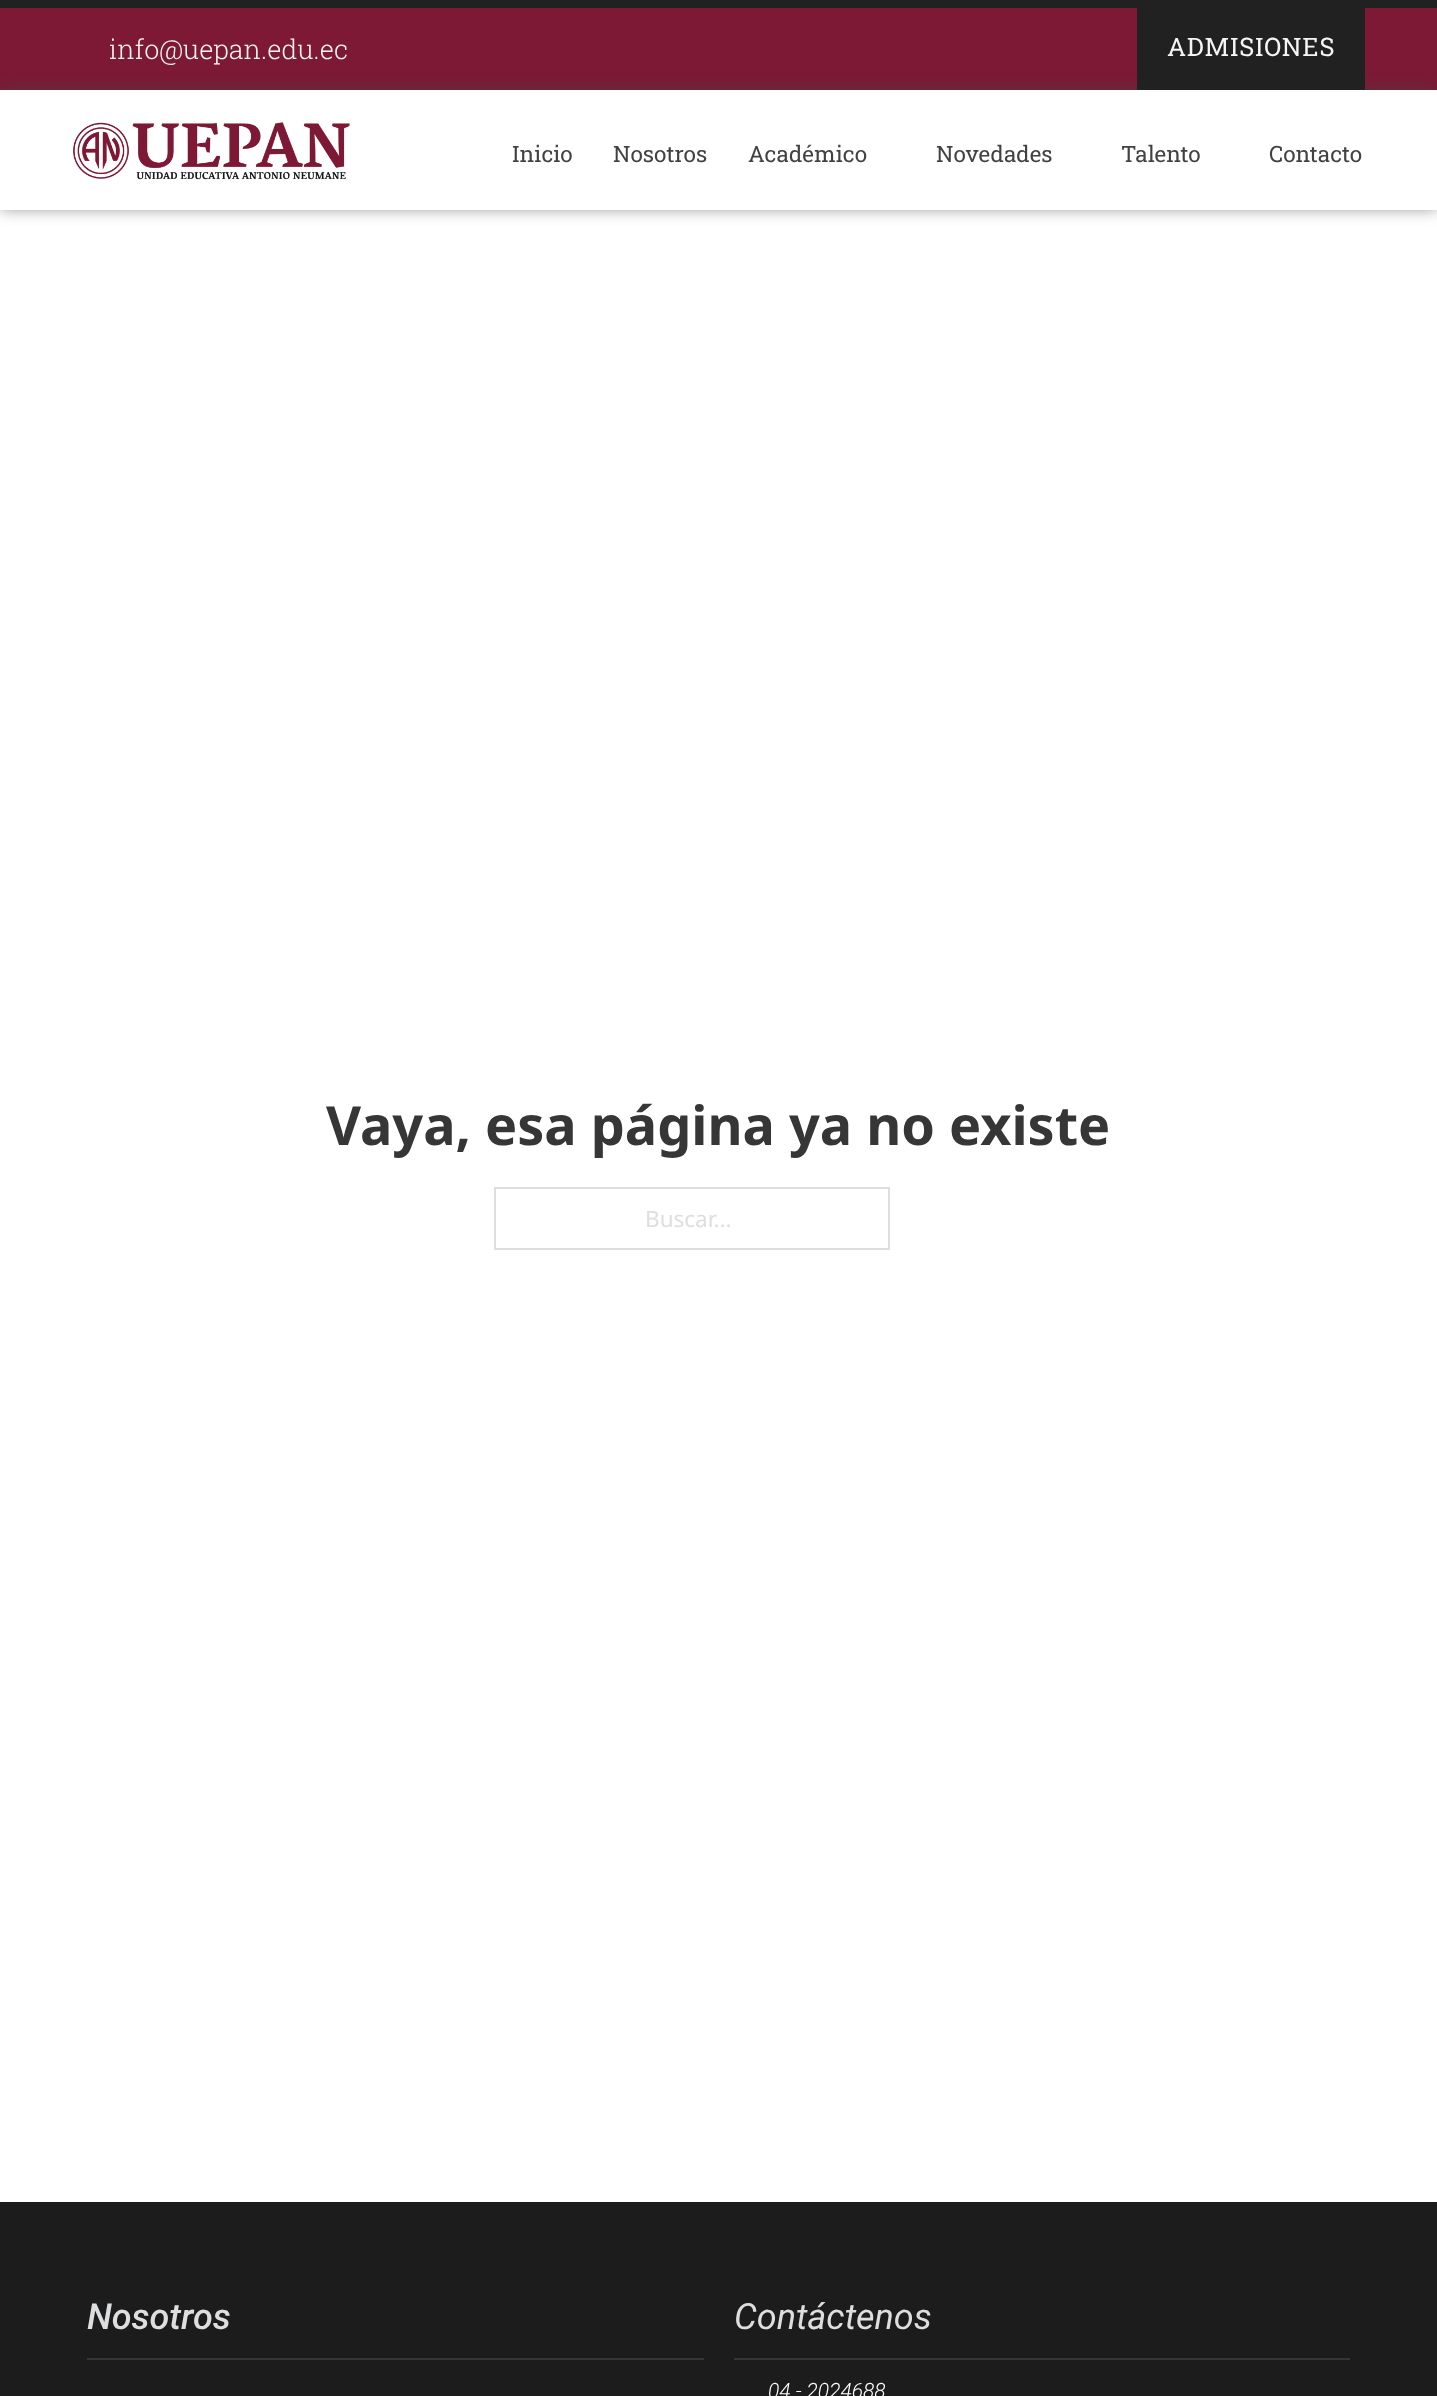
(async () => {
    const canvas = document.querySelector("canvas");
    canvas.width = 1437;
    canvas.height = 2396;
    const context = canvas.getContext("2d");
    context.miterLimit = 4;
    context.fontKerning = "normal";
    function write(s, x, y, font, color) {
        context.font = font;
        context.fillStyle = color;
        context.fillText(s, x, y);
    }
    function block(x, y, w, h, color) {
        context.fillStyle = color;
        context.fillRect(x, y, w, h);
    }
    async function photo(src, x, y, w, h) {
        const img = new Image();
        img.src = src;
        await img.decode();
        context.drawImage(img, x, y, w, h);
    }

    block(0, 0, 1437, 2396, "rgb(255, 255, 255)");
    block(0, 8, 1437, 82, "rgb(125, 25, 53)");
    block(0, 0, 1437, 8, "rgb(33, 33, 33)");
    write("info@uepan.edu.ec", 109, 59, "300 27px Roboto Slab", "rgb(245, 245, 245)");
    context.fillStyle = "rgba(66, 66, 66, 0.56)";
    context.filter = "blur(7.5px)";
    context.beginPath();
    context.rect(0, 89, 1437, 120);
    context.fill();
    context.filter = "none";
    block(1137, 8, 228, 82, "rgb(33, 33, 33)");
    context.letterSpacing = "0.75px";
    write("ADMISIONES", 1167, 56, "25.5px Roboto Slab", "rgb(245, 245, 245)");
    block(0, 90, 1437, 120, "rgb(255, 255, 255)");
    await photo("media/1.png", 73, 122, 277, 58);
    context.letterSpacing = "0px";
    write("Inicio", 512, 162, "22.5px Roboto Slab", "rgb(66, 66, 66)");
    write("Nosotros", 613, 162, "22.5px Roboto Slab", "rgb(66, 66, 66)");
    write("Académico", 748, 162, "22.5px Roboto Slab", "rgb(66, 66, 66)");
    write("Novedades", 936, 162, "22.5px Roboto Slab", "rgb(66, 66, 66)");
    write("Talento", 1121, 162, "22.5px Roboto Slab", "rgb(66, 66, 66)");
    write("Contacto", 1269, 162, "22.5px Roboto Slab", "rgb(66, 66, 66)");
    write("Vaya, esa página ya no existe", 326, 1145, "bold 54px Noto Sans", "rgb(54, 54, 54)");
    context.strokeStyle = "rgb(221, 222, 223)";
    context.lineWidth = 2;
    context.strokeRect(495, 1188, 394, 61);
    write("Buscar...", 645, 1227, "22.5px Noto Sans", "rgb(221, 222, 223)");
    block(0, 2202, 1437, 194, "rgb(28, 28, 28)");
    write("Nosotros", 87, 2329, "italic 500 36px Roboto", "rgb(221, 222, 223)");
    block(87, 2358, 617, 2, "rgb(54, 54, 54)");
    write("Contáctenos", 734, 2329, "italic 36px Roboto", "rgb(221, 222, 223)");
    block(734, 2358, 616, 2, "rgb(54, 54, 54)");
    write("04 - 2024688", 768, 2398, "italic 300 21px Roboto", "rgb(255, 255, 255)");
})();
